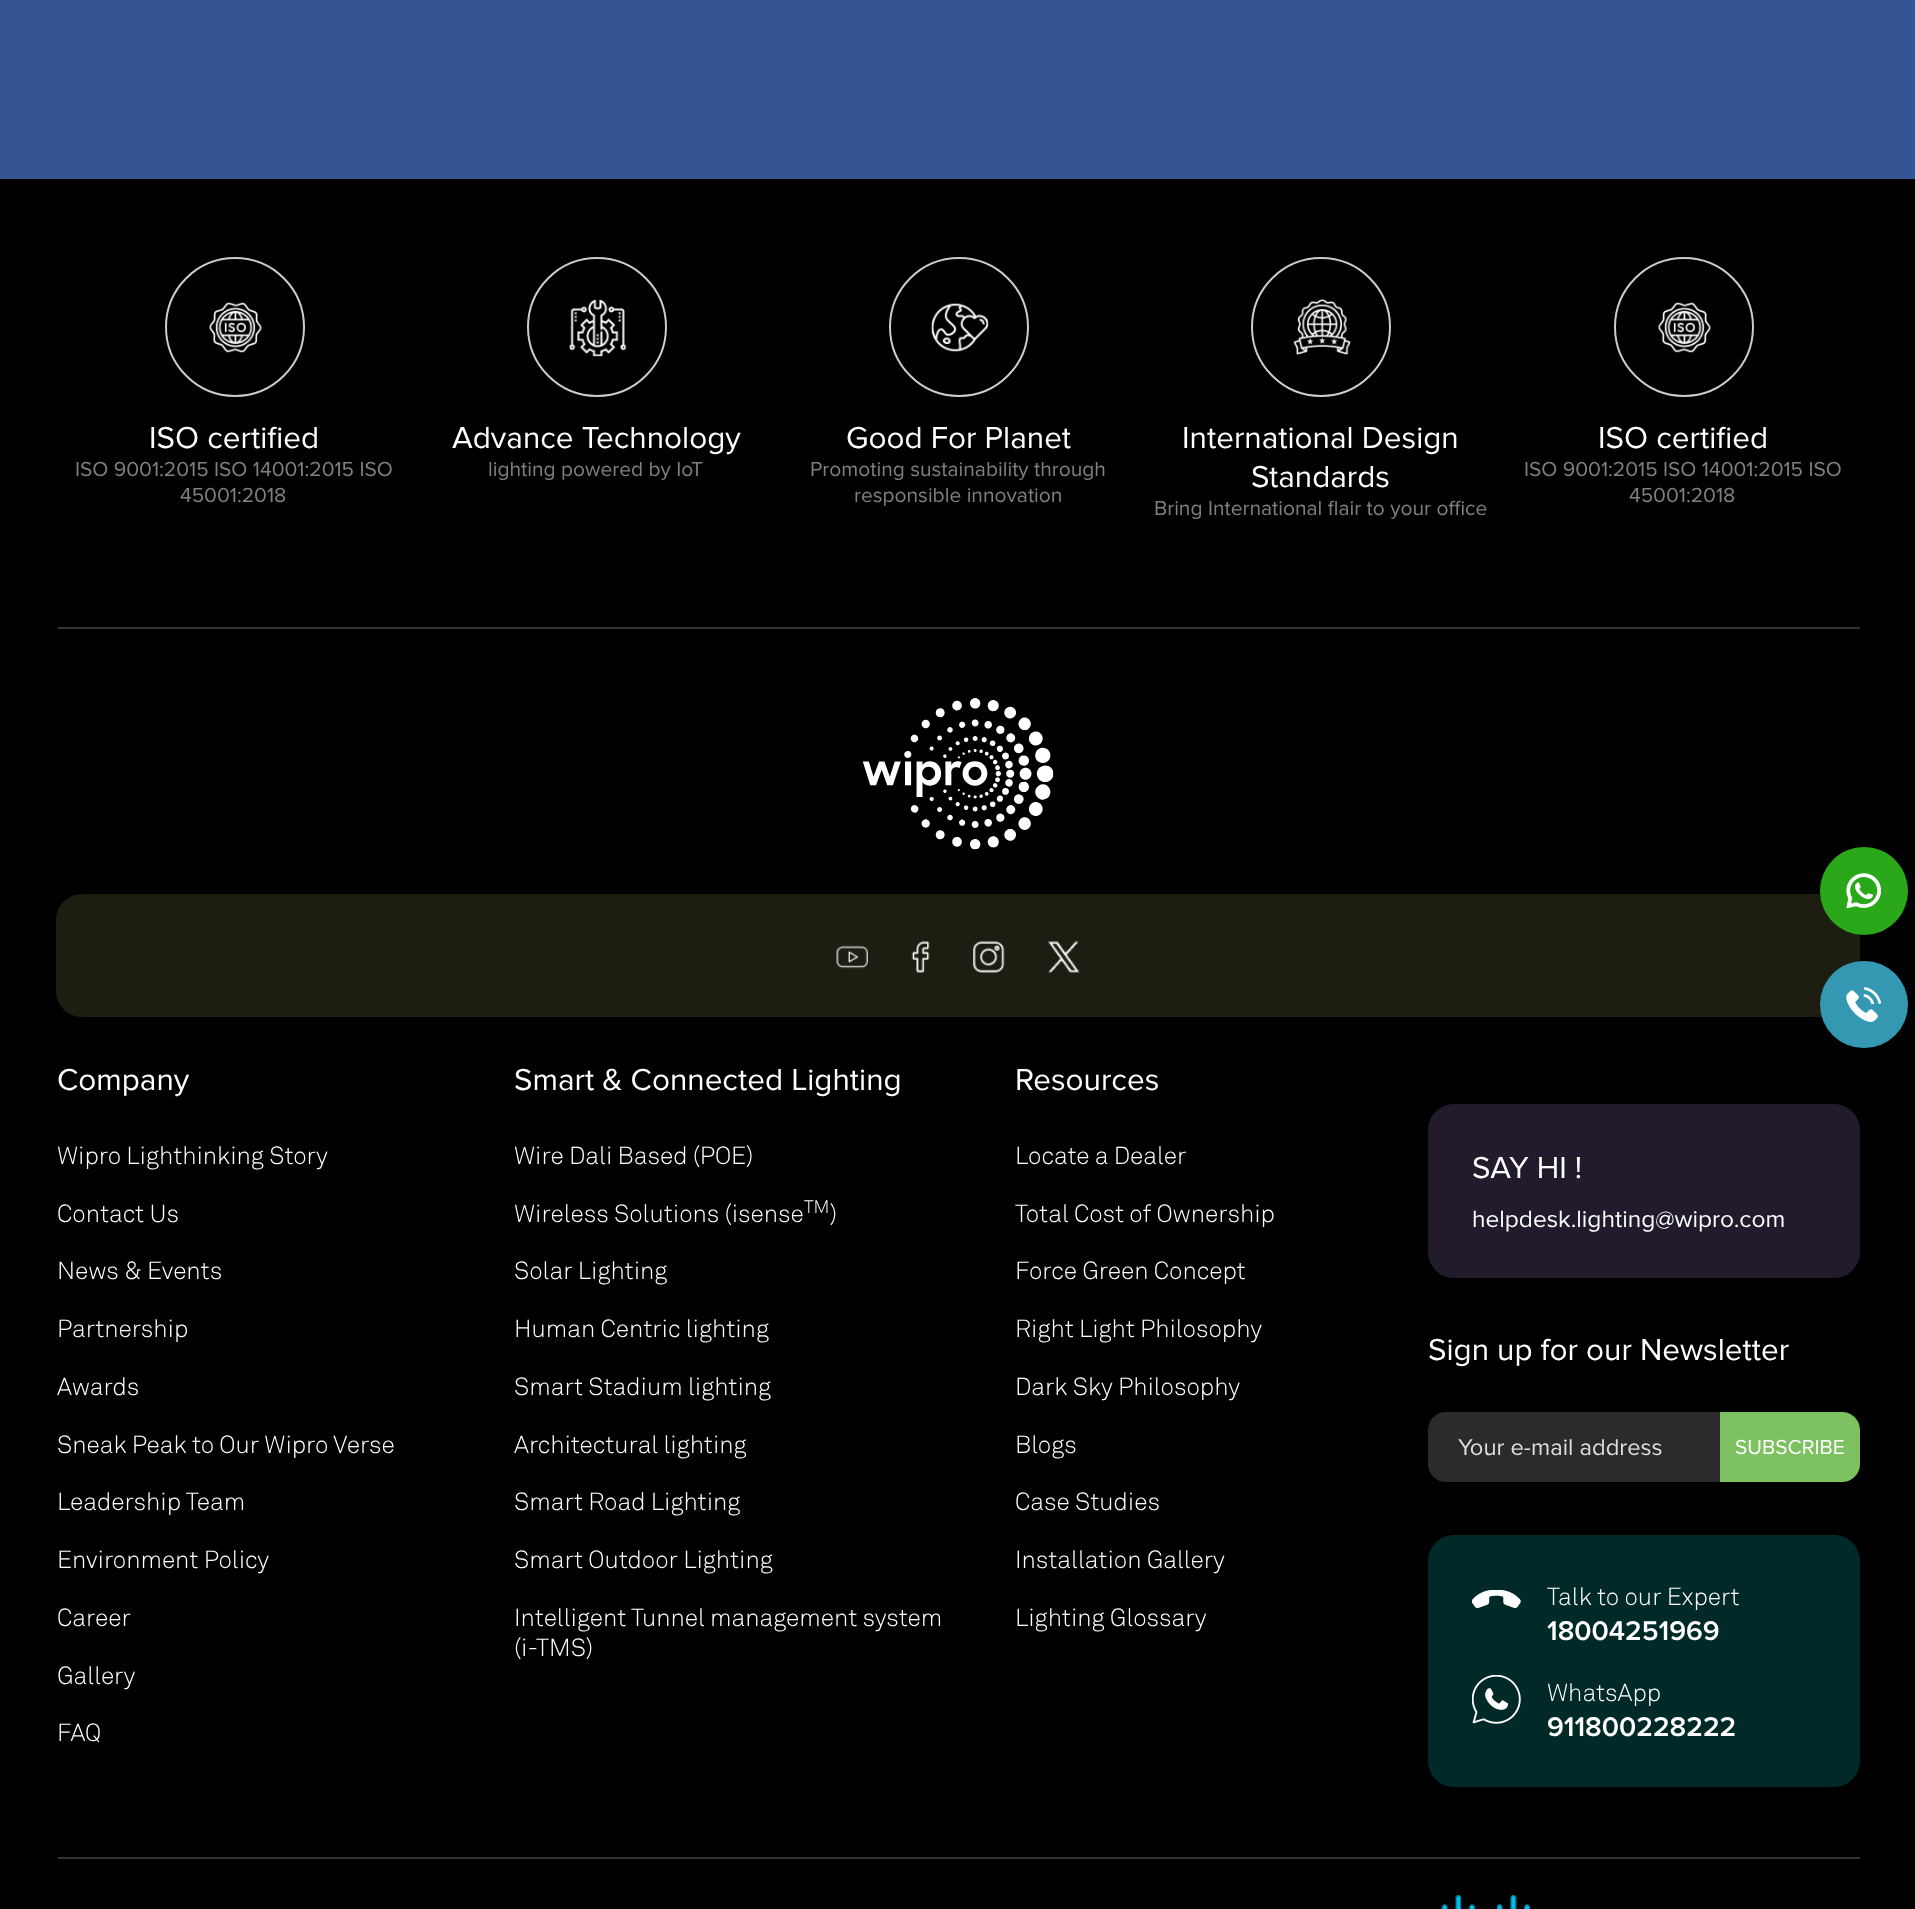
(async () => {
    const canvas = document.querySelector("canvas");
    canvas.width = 1915;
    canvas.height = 1909;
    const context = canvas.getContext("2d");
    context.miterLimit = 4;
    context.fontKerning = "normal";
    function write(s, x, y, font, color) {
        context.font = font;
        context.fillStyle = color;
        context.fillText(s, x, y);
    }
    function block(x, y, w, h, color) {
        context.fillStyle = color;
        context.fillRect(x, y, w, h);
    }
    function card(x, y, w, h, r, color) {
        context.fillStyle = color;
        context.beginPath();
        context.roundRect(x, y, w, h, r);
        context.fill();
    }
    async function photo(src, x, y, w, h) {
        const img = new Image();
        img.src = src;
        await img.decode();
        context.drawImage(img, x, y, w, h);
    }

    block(0, 0, 1915, 1909, "rgb(53, 84, 147)");
    block(0, 179, 1915, 1730, "rgb(0, 0, 0)");
    block(58, 627, 1802, 2, "rgb(51, 51, 51)");
    context.beginPath();
    context.arc(235, 327, 69, 0, Math.PI * 2);
    context.strokeStyle = "rgb(204, 204, 204)";
    context.lineWidth = 2;
    context.stroke();
    await photo("media/1.png", 209, 302, 53, 51);
    write("ISO certified", 149, 448, "31.5px Proxima Nova", "rgb(255, 255, 255)");
    write("ISO 9001:2015 ISO 14001:2015 ISO", 75, 476, "21px Proxima Nova", "rgb(128, 128, 128)");
    write("45001:2018", 180, 502, "21px Proxima Nova", "rgb(128, 128, 128)");
    context.beginPath();
    context.arc(597, 327, 69, 0, Math.PI * 2);
    context.stroke();
    await photo("media/2.png", 569, 299, 58, 58);
    write("Advance Technology", 452, 448, "31.5px Proxima Nova", "rgb(255, 255, 255)");
    write("lighting powered by IoT", 488, 476, "21px Proxima Nova", "rgb(128, 128, 128)");
    context.beginPath();
    context.arc(959, 327, 69, 0, Math.PI * 2);
    context.stroke();
    await photo("media/3.png", 931, 303, 58, 49);
    write("Good For Planet", 846, 448, "31.5px Proxima Nova", "rgb(255, 255, 255)");
    write("Promoting sustainability through", 810, 476, "21px Proxima Nova", "rgb(128, 128, 128)");
    write("responsible innovation", 854, 502, "21px Proxima Nova", "rgb(128, 128, 128)");
    context.beginPath();
    context.arc(1321, 327, 69, 0, Math.PI * 2);
    context.stroke();
    await photo("media/4.png", 1293, 299, 58, 56);
    write("International Design", 1182, 448, "31.5px Proxima Nova", "rgb(255, 255, 255)");
    write("Standards", 1251, 487, "31.5px Proxima Nova", "rgb(255, 255, 255)");
    write("Bring International flair to your office", 1154, 515, "21px Proxima Nova", "rgb(128, 128, 128)");
    context.beginPath();
    context.arc(1684, 327, 69, 0, Math.PI * 2);
    context.stroke();
    await photo("media/1.png", 1658, 302, 53, 51);
    write("ISO certified", 1598, 448, "31.5px Proxima Nova", "rgb(255, 255, 255)");
    write("ISO 9001:2015 ISO 14001:2015 ISO", 1524, 476, "21px Proxima Nova", "rgb(128, 128, 128)");
    write("45001:2018", 1629, 502, "21px Proxima Nova", "rgb(128, 128, 128)");
    block(58, 1857, 1802, 2, "rgb(51, 51, 51)");
    await photo("media/5.png", 863, 698, 191, 152);
    card(56, 894, 1804, 123, 26, "rgb(29, 30, 17)");
    await photo("media/6.png", 836, 945, 32, 24);
    await photo("media/7.png", 911, 941, 19, 32);
    await photo("media/8.png", 973, 941, 32, 32);
    await photo("media/9.png", 1048, 941, 32, 32);
    write("Company", 57, 1090, "31.5px Proxima Nova", "rgb(255, 255, 255)");
    write("Wipro Lighthinking Story", 57, 1164, "300 24.5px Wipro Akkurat", "rgb(255, 255, 255)");
    write("Contact Us", 57, 1222, "300 24.5px Wipro Akkurat", "rgb(255, 255, 255)");
    write("News & Events", 57, 1279, "300 24.5px Wipro Akkurat", "rgb(255, 255, 255)");
    write("Partnership", 57, 1337, "300 24.5px Wipro Akkurat", "rgb(255, 255, 255)");
    write("Awards", 57, 1395, "300 24.5px Wipro Akkurat", "rgb(255, 255, 255)");
    write("Sneak Peak to Our Wipro Verse", 57, 1453, "300 24.5px Wipro Akkurat", "rgb(255, 255, 255)");
    write("Leadership Team", 57, 1510, "300 24.5px Wipro Akkurat", "rgb(255, 255, 255)");
    write("Environment Policy", 57, 1568, "300 24.5px Wipro Akkurat", "rgb(255, 255, 255)");
    write("Career", 57, 1626, "300 24.5px Wipro Akkurat", "rgb(255, 255, 255)");
    write("Gallery", 57, 1684, "300 24.5px Wipro Akkurat", "rgb(255, 255, 255)");
    write("FAQ", 57, 1741, "300 24.5px Wipro Akkurat", "rgb(255, 255, 255)");
    write("Smart & Connected Lighting", 514, 1090, "31.5px Proxima Nova", "rgb(255, 255, 255)");
    write("Wire Dali Based (POE)", 514, 1164, "300 24.5px Wipro Akkurat", "rgb(255, 255, 255)");
    write("Wireless Solutions (isense", 514, 1222, "300 24.5px Wipro Akkurat", "rgb(255, 255, 255)");
    write("TM", 804, 1213, "300 18px Wipro Akkurat", "rgb(255, 255, 255)");
    write(")", 830, 1222, "300 24.5px Wipro Akkurat", "rgb(255, 255, 255)");
    write("Solar Lighting", 514, 1279, "300 24.5px Wipro Akkurat", "rgb(255, 255, 255)");
    write("Human Centric lighting", 514, 1337, "300 24.5px Wipro Akkurat", "rgb(255, 255, 255)");
    write("Smart Stadium lighting", 514, 1395, "300 24.5px Wipro Akkurat", "rgb(255, 255, 255)");
    write("Architectural lighting", 514, 1453, "300 24.5px Wipro Akkurat", "rgb(255, 255, 255)");
    write("Smart Road Lighting", 514, 1510, "300 24.5px Wipro Akkurat", "rgb(255, 255, 255)");
    write("Smart Outdoor Lighting", 514, 1568, "300 24.5px Wipro Akkurat", "rgb(255, 255, 255)");
    write("Intelligent Tunnel management system", 514, 1626, "300 24.5px Wipro Akkurat", "rgb(255, 255, 255)");
    write("(i-TMS)", 514, 1656, "300 24.5px Wipro Akkurat", "rgb(255, 255, 255)");
    write("Resources", 1015, 1090, "31.5px Proxima Nova", "rgb(255, 255, 255)");
    write("Locate a Dealer", 1015, 1164, "300 24.5px Wipro Akkurat", "rgb(255, 255, 255)");
    write("Total Cost of Ownership", 1015, 1222, "300 24.5px Wipro Akkurat", "rgb(255, 255, 255)");
    write("Force Green Concept", 1015, 1279, "300 24.5px Wipro Akkurat", "rgb(255, 255, 255)");
    write("Right Light Philosophy", 1015, 1337, "300 24.5px Wipro Akkurat", "rgb(255, 255, 255)");
    write("Dark Sky Philosophy", 1015, 1395, "300 24.5px Wipro Akkurat", "rgb(255, 255, 255)");
    write("Blogs", 1015, 1453, "300 24.5px Wipro Akkurat", "rgb(255, 255, 255)");
    write("Case Studies", 1015, 1510, "300 24.5px Wipro Akkurat", "rgb(255, 255, 255)");
    write("Installation Gallery", 1015, 1568, "300 24.5px Wipro Akkurat", "rgb(255, 255, 255)");
    write("Lighting Glossary", 1015, 1626, "300 24.5px Wipro Akkurat", "rgb(255, 255, 255)");
    card(1428, 1104, 432, 174, 26, "rgb(34, 27, 44)");
    write("SAY HI !", 1472, 1178, "31.5px Proxima Nova", "rgb(255, 255, 255)");
    write("helpdesk.lighting@wipro.com", 1472, 1227, "24.5px Proxima Nova", "rgb(255, 255, 255)");
    write("Sign up for our Newsletter", 1428, 1360, "31.5px Proxima Nova", "rgb(255, 255, 255)");
    context.fillStyle = "rgb(43, 43, 43)";
    context.beginPath();
    context.roundRect(1428, 1412, 292, 70, [18, 0, 0, 18]);
    context.fill();
    write("Your e-mail address", 1458, 1455, "23.75px Proxima Nova", "rgb(223, 223, 223)");
    context.fillStyle = "rgb(125, 193, 97)";
    context.beginPath();
    context.roundRect(1721, 1413, 138, 68, [0, 17, 17, 0]);
    context.fill();
    context.strokeStyle = "rgb(125, 193, 97)";
    context.stroke();
    write("SUBSCRIBE", 1735, 1454, "21px Proxima Nova", "rgb(255, 255, 255)");
    card(1428, 1535, 432, 252, 26, "rgb(0, 41, 39)");
    await photo("media/10.png", 1472, 1590, 49, 18);
    write("Talk to our Expert", 1547, 1605, "300 24.5px Wipro Akkurat", "rgb(255, 255, 255)");
    write("18004251969", 1547, 1640, "600 28px Proxima Nova", "rgb(255, 255, 255)");
    await photo("media/11.png", 1472, 1675, 49, 49);
    write("WhatsApp", 1547, 1701, "300 24.5px Wipro Akkurat", "rgb(255, 255, 255)");
    write("911800228222", 1547, 1736, "600 28px Proxima Nova", "rgb(255, 255, 255)");
    await photo("media/12.png", 1441, 1895, 89, 14);
    context.fillStyle = "rgb(42, 168, 26)";
    context.beginPath();
    context.arc(1864, 891, 44, 0, Math.PI * 2);
    context.fill();
    await photo("media/13.png", 1846, 873, 35, 36);
    card(1820, 961, 88, 87, 43.5, "rgb(52, 152, 179)");
    await photo("media/14.png", 1846, 987, 35, 35);
})();
